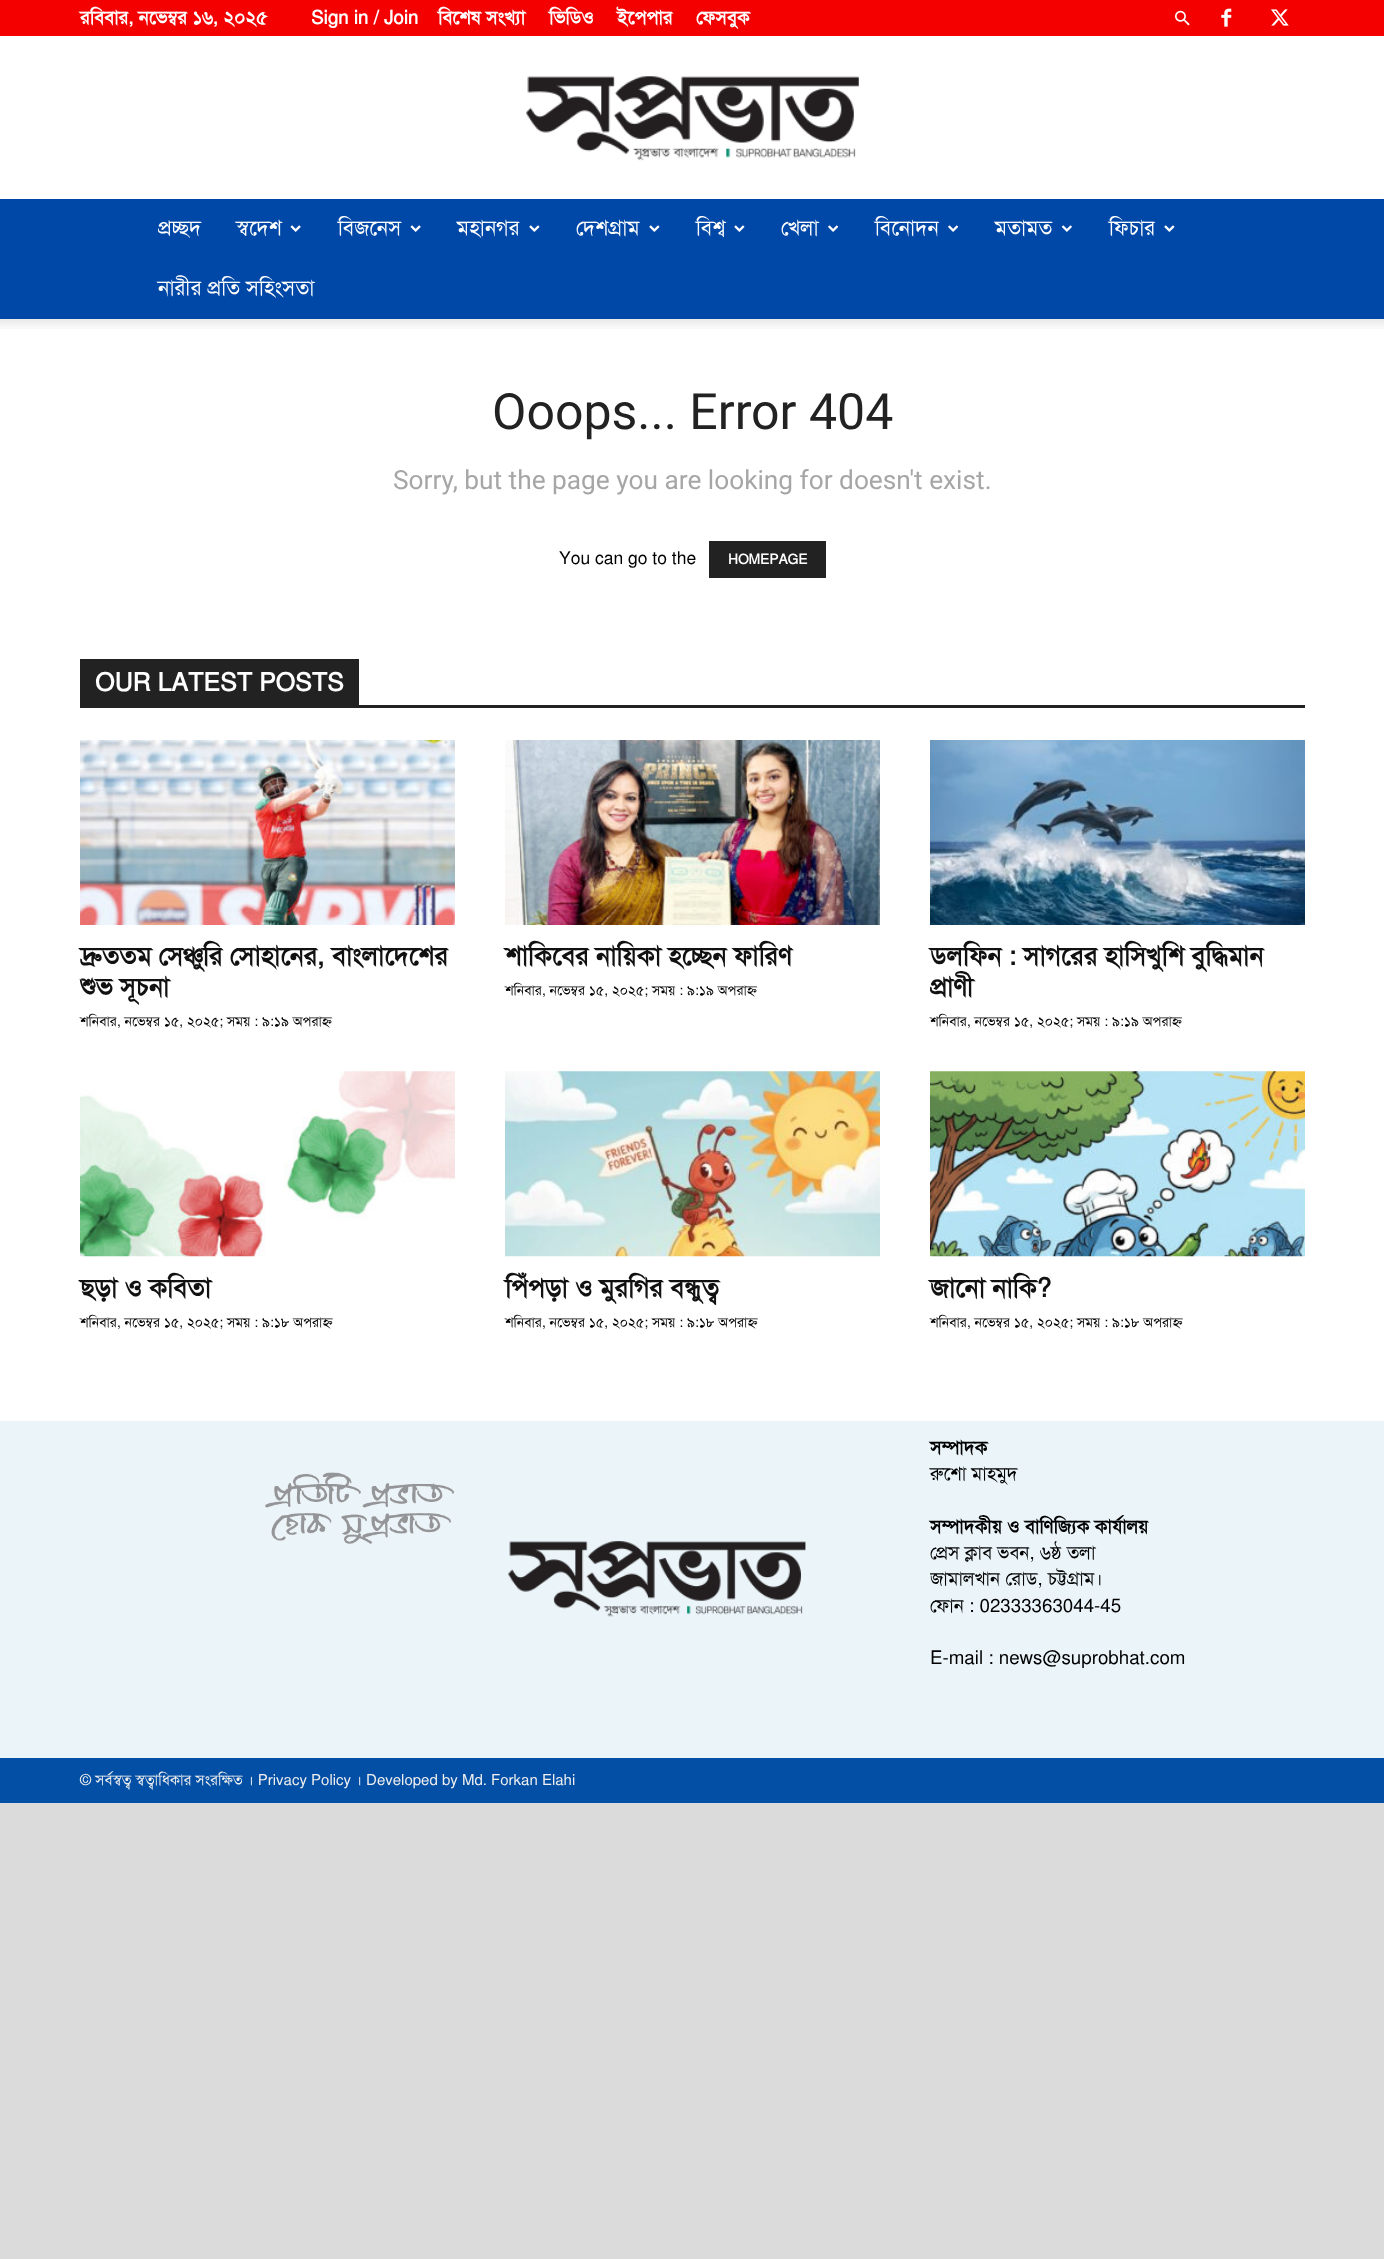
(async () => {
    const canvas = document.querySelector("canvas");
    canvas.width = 1384;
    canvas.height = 2259;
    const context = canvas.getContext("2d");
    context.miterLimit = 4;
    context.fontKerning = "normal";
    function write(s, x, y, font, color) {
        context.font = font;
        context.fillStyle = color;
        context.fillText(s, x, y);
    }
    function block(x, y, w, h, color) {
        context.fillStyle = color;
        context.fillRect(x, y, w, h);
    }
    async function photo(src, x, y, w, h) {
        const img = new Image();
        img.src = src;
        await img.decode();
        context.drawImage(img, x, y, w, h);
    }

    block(0, 0, 1384, 2259, "rgb(219, 219, 219)");
    block(0, 0, 1384, 36, "rgb(244, 0, 0)");
    write("রবিবার, নভেম্বর ১৬, ২০২৫", 80, 24, "bold 18.75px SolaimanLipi", "rgb(255, 255, 255)");
    write("Sign in / Join", 311, 24, "bold 18.75px SolaimanLipi", "rgb(255, 255, 255)");
    write("বিশেষ সংখ্যা", 438, 24, "bold 18.75px SolaimanLipi", "rgb(255, 255, 255)");
    write("ভিডিও", 549, 24, "bold 18.75px SolaimanLipi", "rgb(255, 255, 255)");
    write("ইপেপার", 617, 24, "bold 18.75px SolaimanLipi", "rgb(255, 255, 255)");
    write("ফেসবুক", 696, 24, "bold 18.75px SolaimanLipi", "rgb(255, 255, 255)");
    await photo("media/1.png", 1175, 10, 15, 16);
    await photo("media/2.png", 1221, 8, 11, 19);
    await photo("media/3.png", 1271, 9, 18, 17);
    block(0, 36, 1384, 163, "rgb(255, 255, 255)");
    await photo("media/4.png", 526, 76, 333, 85);
    block(0, 199, 1384, 120, "rgb(0, 72, 168)");
    write("প্রচ্ছদ", 158, 235, "21.25px SolaimanLipi", "rgb(255, 255, 255)");
    write("স্বদেশ", 236, 235, "21.25px SolaimanLipi", "rgb(255, 255, 255)");
    await photo("media/5.png", 290, 225, 11, 7);
    write("বিজনেস", 338, 235, "21.25px SolaimanLipi", "rgb(255, 255, 255)");
    await photo("media/5.png", 410, 225, 11, 7);
    write("মহানগর", 457, 235, "21.25px SolaimanLipi", "rgb(255, 255, 255)");
    await photo("media/6.png", 529, 225, 11, 7);
    write("দেশগ্রাম", 576, 235, "21.25px SolaimanLipi", "rgb(255, 255, 255)");
    await photo("media/6.png", 649, 225, 11, 7);
    write("বিশ্ব", 696, 235, "21.25px SolaimanLipi", "rgb(255, 255, 255)");
    await photo("media/6.png", 734, 225, 11, 7);
    write("খেলা", 781, 235, "21.25px SolaimanLipi", "rgb(255, 255, 255)");
    await photo("media/7.png", 828, 225, 11, 7);
    write("বিনোদন", 875, 235, "21.25px SolaimanLipi", "rgb(255, 255, 255)");
    await photo("media/7.png", 948, 225, 11, 7);
    write("মতামত", 995, 235, "21.25px SolaimanLipi", "rgb(255, 255, 255)");
    await photo("media/8.png", 1061, 225, 11, 7);
    write("ফিচার", 1109, 235, "21.25px SolaimanLipi", "rgb(255, 255, 255)");
    await photo("media/6.png", 1164, 225, 11, 7);
    write("নারীর প্রতি সহিংসতা", 158, 295, "21.25px SolaimanLipi", "rgb(255, 255, 255)");
    block(0, 319, 1384, 1102, "rgb(255, 255, 255)");
    await photo("media/9.png", 0, 319, 1384, 10);
    write("Ooops... Error 404", 492, 429, "50px Roboto", "rgb(34, 34, 34)");
    write("Sorry, but the page you are looking for doesn't exist.", 393, 489, "26.25px Roboto", "rgb(166, 166, 166)");
    write("You can go to the", 559, 564, "17.5px SolaimanLipi", "rgb(0, 0, 0)");
    block(709, 541, 117, 37, "rgb(34, 34, 34)");
    write("HOMEPAGE", 728, 564, "bold 13.75px SolaimanLipi", "rgb(255, 255, 255)");
    block(80, 705, 1225, 3, "rgb(34, 34, 34)");
    block(80, 659, 279, 46, "rgb(34, 34, 34)");
    write("OUR LATEST POSTS", 95, 691, "bold 25px SolaimanLipi", "rgb(255, 255, 255)");
    await photo("media/10.png", 80, 740, 375, 185);
    write("দ্রুততম সেঞ্চুরি সোহানের, বাংলাদেশের", 80, 965, "bold 26.25px SolaimanLipi", "rgb(17, 17, 17)");
    write("শুভ সূচনা", 80, 996, "bold 26.25px SolaimanLipi", "rgb(17, 17, 17)");
    write("শনিবার, নভেম্বর ১৫, ২০২৫; সময় : ৯:১৯ অপরাহ্ণ", 80, 1026, "13.75px SolaimanLipi", "rgb(0, 0, 0)");
    await photo("media/11.png", 505, 740, 375, 185);
    write("শাকিবের নায়িকা হচ্ছেন ফারিণ", 505, 965, "bold 26.25px SolaimanLipi", "rgb(17, 17, 17)");
    write("শনিবার, নভেম্বর ১৫, ২০২৫; সময় : ৯:১৯ অপরাহ্ণ", 505, 995, "13.75px SolaimanLipi", "rgb(0, 0, 0)");
    await photo("media/12.png", 930, 740, 375, 185);
    write("ডলফিন : সাগরের হাসিখুশি বুদ্ধিমান", 930, 965, "bold 26.25px SolaimanLipi", "rgb(17, 17, 17)");
    write("প্রাণী", 930, 996, "bold 26.25px SolaimanLipi", "rgb(17, 17, 17)");
    write("শনিবার, নভেম্বর ১৫, ২০২৫; সময় : ৯:১৯ অপরাহ্ণ", 930, 1026, "13.75px SolaimanLipi", "rgb(0, 0, 0)");
    await photo("media/13.png", 80, 1071, 375, 186);
    write("ছড়া ও কবিতা", 80, 1297, "bold 26.25px SolaimanLipi", "rgb(17, 17, 17)");
    write("শনিবার, নভেম্বর ১৫, ২০২৫; সময় : ৯:১৮ অপরাহ্ণ", 80, 1327, "13.75px SolaimanLipi", "rgb(0, 0, 0)");
    await photo("media/14.png", 505, 1071, 375, 186);
    write("পিঁপড়া ও মুরগির বন্ধুত্ব", 505, 1297, "bold 26.25px SolaimanLipi", "rgb(17, 17, 17)");
    write("শনিবার, নভেম্বর ১৫, ২০২৫; সময় : ৯:১৮ অপরাহ্ণ", 505, 1327, "13.75px SolaimanLipi", "rgb(0, 0, 0)");
    await photo("media/15.png", 930, 1071, 375, 186);
    write("জানো নাকি?", 930, 1297, "bold 26.25px SolaimanLipi", "rgb(17, 17, 17)");
    write("শনিবার, নভেম্বর ১৫, ২০২৫; সময় : ৯:১৮ অপরাহ্ণ", 930, 1327, "13.75px SolaimanLipi", "rgb(0, 0, 0)");
    block(0, 1421, 1384, 337, "rgb(234, 244, 249)");
    await photo("media/16.png", 265, 1472, 190, 72);
    write("সম্পাদক", 930, 1454, "bold 18.75px SolaimanLipi", "rgb(0, 0, 0)");
    write("রুশো মাহমুদ", 930, 1480, "18.75px SolaimanLipi", "rgb(0, 0, 0)");
    write("সম্পাদকীয় ও বাণিজ্যিক কার্যালয়", 930, 1533, "bold 18.75px SolaimanLipi", "rgb(0, 0, 0)");
    write("প্রেস ক্লাব ভবন, ৬ষ্ঠ তলা", 930, 1559, "18.75px SolaimanLipi", "rgb(0, 0, 0)");
    context.save();
    context.beginPath();
    context.rect(930, 1435, 375, 263);
    context.clip();
    write("জামালখান রোড, চট্টগ্রাম।", 930, 1585, "18.75px SolaimanLipi", "rgb(0, 0, 0)");
    write("ফোন : 02333363044-45", 930, 1612, "18.75px SolaimanLipi", "rgb(0, 0, 0)");
    context.restore();
    write("E-mail : news@suprobhat.com", 930, 1664, "18.75px SolaimanLipi", "rgb(0, 0, 0)");
    await photo("media/17.png", 508, 1541, 298, 76);
    block(0, 1758, 1384, 45, "rgb(3, 79, 165)");
    write("© সর্বস্বত্ব স্বত্বাধিকার সংরক্ষিত । Privacy Policy । Developed by Md. Forkan Elahi", 80, 1785, "15px SolaimanLipi", "rgb(239, 239, 239)");
})();
